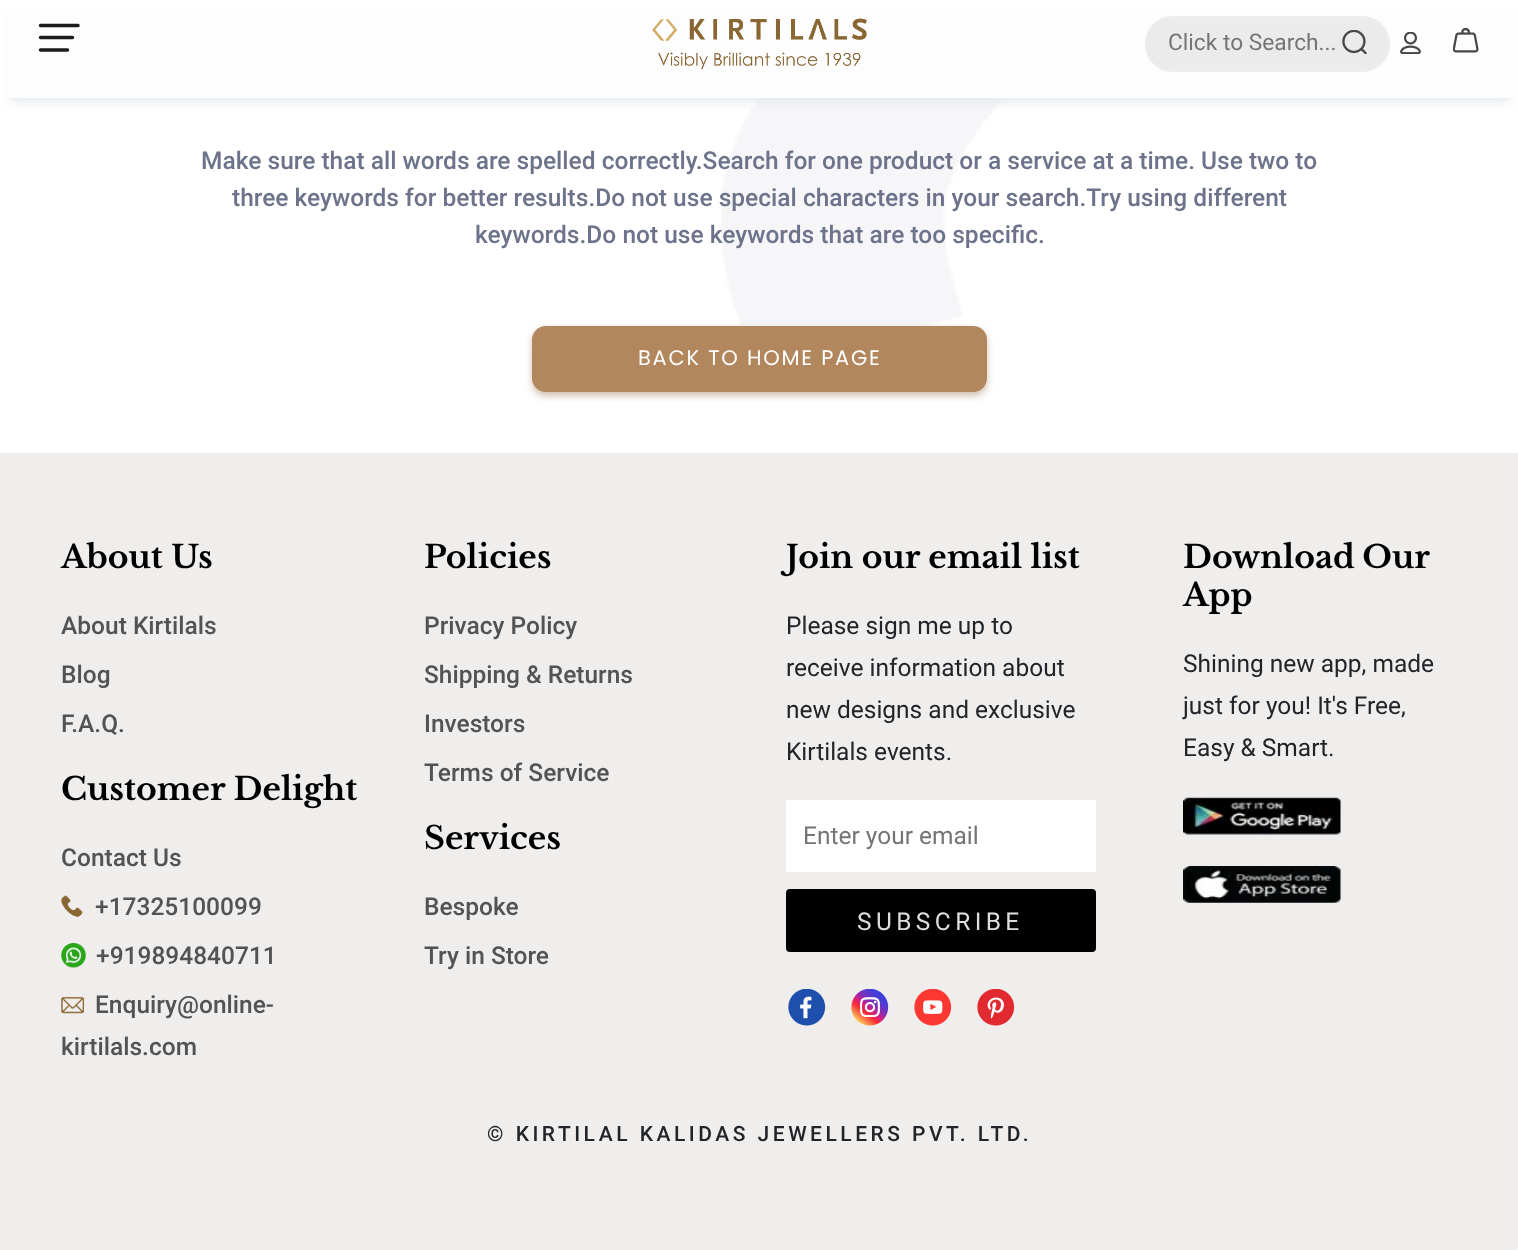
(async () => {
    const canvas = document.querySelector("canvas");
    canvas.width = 1518;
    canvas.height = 1250;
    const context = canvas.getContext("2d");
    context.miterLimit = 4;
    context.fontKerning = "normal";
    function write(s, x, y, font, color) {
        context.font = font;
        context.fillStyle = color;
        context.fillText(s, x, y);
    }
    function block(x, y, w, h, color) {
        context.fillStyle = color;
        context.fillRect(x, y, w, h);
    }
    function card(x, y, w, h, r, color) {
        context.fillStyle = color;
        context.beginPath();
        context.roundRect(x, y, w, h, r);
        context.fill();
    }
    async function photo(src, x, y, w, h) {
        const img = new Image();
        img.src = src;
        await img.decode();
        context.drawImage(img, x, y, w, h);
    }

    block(0, 0, 1518, 1250, "rgb(255, 255, 255)");
    await photo("media/5.png", 721, 98, 285, 228);
    context.fillStyle = "rgb(228, 232, 237)";
    context.filter = "blur(5px)";
    context.beginPath();
    context.rect(11, 25, 1498, 66);
    context.fill();
    context.filter = "none";
    context.filter = "blur(5px)";
    context.beginPath();
    context.rect(11, 16, 1498, 86);
    context.fill();
    context.filter = "none";
    block(4, 11, 1512, 87, "rgb(253, 253, 253)");
    context.beginPath();
    context.moveTo(40.5, 25.5);
    context.lineTo(78, 25.5);
    context.moveTo(40.5, 37.5);
    context.lineTo(72.5, 37.5);
    context.moveTo(40.5, 50);
    context.lineTo(67.5, 50);
    context.strokeStyle = "rgb(29, 27, 29)";
    context.lineWidth = 3.5;
    context.lineCap = "round";
    context.stroke();
    await photo("media/1.png", 652, 18, 215, 52);
    card(1145, 16, 245, 56, 28, "rgb(235, 235, 235)");
    await photo("media/2.png", 1342, 30, 25, 24);
    context.beginPath();
    context.roundRect(1146, 17, 243, 54, 27);
    context.strokeStyle = "rgb(237, 237, 237)";
    context.lineWidth = 2;
    context.stroke();
    write("Click to Search...", 1168, 50, "22.75px Roboto", "rgb(117, 117, 117)");
    await photo("media/3.png", 1400, 32, 21, 22);
    await photo("media/4.png", 1453, 28, 26, 25);
    write("Make sure that all words are spelled correctly.Search for one product or a service at a time. Use two to", 201, 169, "500 24.5px Roboto", "rgb(108, 115, 138)");
    write("three keywords for better results.Do not use special characters in your search.Try using different", 232, 206, "500 24.5px Roboto", "rgb(108, 115, 138)");
    write("keywords.Do not use keywords that are too specific.", 475, 243, "500 24.5px Roboto", "rgb(108, 115, 138)");
    context.fillStyle = "rgb(209, 192, 176)";
    context.filter = "blur(3.5px)";
    context.beginPath();
    context.roundRect(532, 329, 455, 67, 14);
    context.fill();
    context.filter = "none";
    card(532, 326, 455, 66, 14, "rgb(178, 135, 93)");
    context.letterSpacing = "1.75px";
    write("BACK TO HOME PAGE", 638, 365, "21px Poppins", "rgb(255, 255, 255)");
    block(0, 453, 1518, 797, "rgb(240, 238, 237)");
    context.letterSpacing = "0px";
    write("About Us", 61, 568, "bold 31.5px Libre Baskerville", "rgb(0, 0, 0)");
    write("About Kirtilals", 61, 634, "500 24.5px Roboto", "rgb(82, 83, 85)");
    write("Blog", 61, 683, "500 24.5px Roboto", "rgb(82, 83, 85)");
    write("F.A.Q.", 61, 732, "500 24.5px Roboto", "rgb(82, 83, 85)");
    write("Customer Delight", 61, 800, "bold 31.5px Libre Baskerville", "rgb(0, 0, 0)");
    write("Contact Us", 61, 866, "500 24.5px Roboto", "rgb(82, 83, 85)");
    await photo("media/6.png", 61, 895, 22, 22);
    write("+17325100099", 95, 915, "500 24.5px Roboto", "rgb(82, 83, 85)");
    await photo("media/7.png", 61, 943, 25, 25);
    write("+919894840711", 96, 964, "500 24.5px Roboto", "rgb(82, 83, 85)");
    await photo("media/8.png", 61, 996, 23, 18);
    write("Enquiry@online-", 95, 1013, "500 24.5px Roboto", "rgb(82, 83, 85)");
    write("kirtilals.com", 61, 1055, "500 24.5px Roboto", "rgb(82, 83, 85)");
    write("Policies", 424, 568, "bold 31.5px Libre Baskerville", "rgb(0, 0, 0)");
    write("Privacy Policy", 424, 634, "500 24.5px Roboto", "rgb(82, 83, 85)");
    write("Shipping & Returns", 424, 683, "500 24.5px Roboto", "rgb(82, 83, 85)");
    write("Investors", 424, 732, "500 24.5px Roboto", "rgb(82, 83, 85)");
    write("Terms of Service", 424, 781, "500 24.5px Roboto", "rgb(82, 83, 85)");
    write("Services", 424, 849, "bold 31.5px Libre Baskerville", "rgb(0, 0, 0)");
    write("Bespoke", 424, 915, "500 24.5px Roboto", "rgb(82, 83, 85)");
    write("Try in Store", 424, 964, "500 24.5px Roboto", "rgb(82, 83, 85)");
    write("Join our email list", 786, 568, "bold 31.5px Libre Baskerville", "rgb(0, 0, 0)");
    write("Please sign me up to", 786, 634, "24.5px Roboto", "rgb(33, 37, 41)");
    write("receive information about", 786, 676, "24.5px Roboto", "rgb(33, 37, 41)");
    write("new designs and exclusive", 786, 718, "24.5px Roboto", "rgb(33, 37, 41)");
    write("Kirtilals events.", 786, 760, "24.5px Roboto", "rgb(33, 37, 41)");
    block(786, 800, 310, 72, "rgb(255, 255, 255)");
    write("Enter your email", 803, 844, "24.5px Roboto", "rgb(117, 117, 117)");
    card(786, 889, 310, 63, 4, "rgb(0, 0, 0)");
    context.letterSpacing = "4.4px";
    write("SUBSCRIBE", 857, 930, "24.5px Roboto", "rgb(222, 222, 222)");
    await photo("media/9.png", 788, 989, 38, 37);
    await photo("media/10.png", 851, 989, 38, 37);
    await photo("media/11.png", 914, 989, 38, 37);
    await photo("media/12.png", 977, 989, 38, 37);
    context.letterSpacing = "0px";
    context.wordSpacing = "-1px";
    write("Download Our", 1183, 568, "bold 31.5px Libre Baskerville", "rgb(0, 0, 0)");
    context.wordSpacing = "0px";
    write("App", 1183, 606, "bold 31.5px Libre Baskerville", "rgb(0, 0, 0)");
    write("Shining new app, made", 1183, 672, "24.5px Roboto", "rgb(33, 37, 41)");
    write("just for you! It's Free,", 1183, 714, "24.5px Roboto", "rgb(33, 37, 41)");
    write("Easy & Smart.", 1183, 756, "24.5px Roboto", "rgb(33, 37, 41)");
    await photo("media/13.png", 1183, 797, 158, 38);
    await photo("media/14.png", 1183, 866, 158, 37);
    context.letterSpacing = "3.5px";
    write("© KIRTILAL KALIDAS JEWELLERS PVT. LTD.", 487, 1141, "500 21px Roboto", "rgb(33, 37, 41)");
    block(1516, 1248, 2, 2, "rgb(245, 245, 245)");
})();
